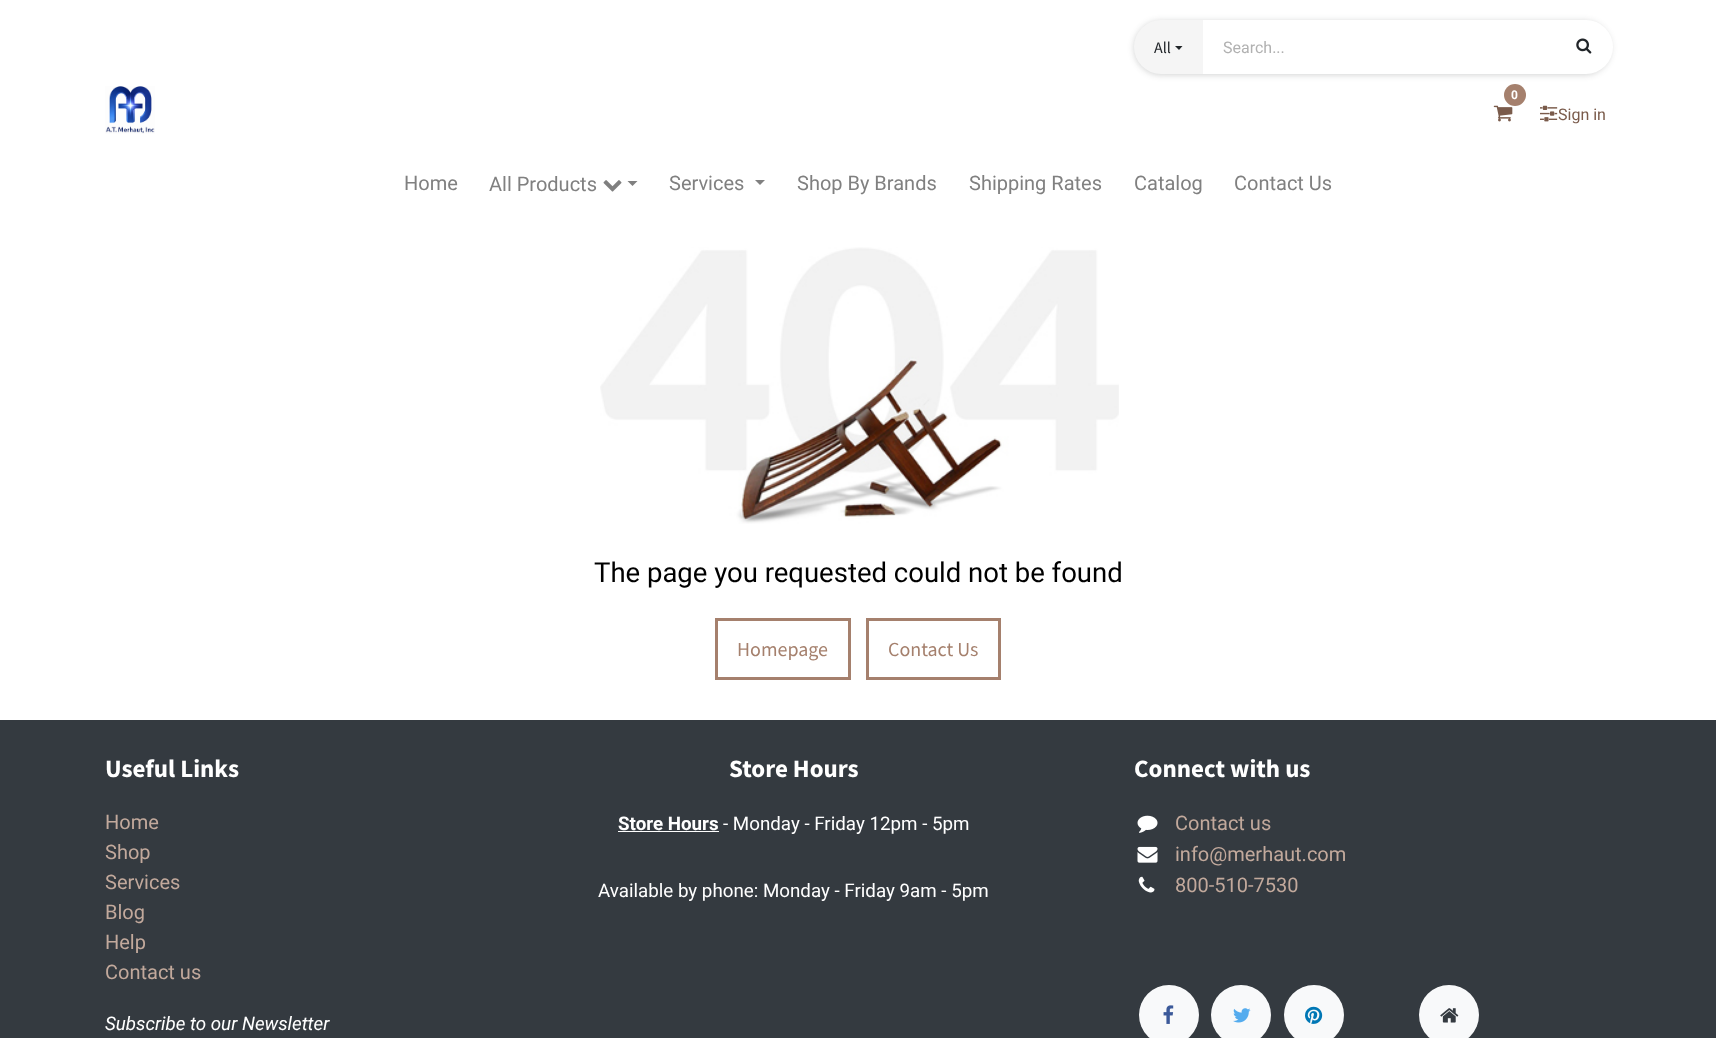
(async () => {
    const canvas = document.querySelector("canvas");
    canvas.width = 1716;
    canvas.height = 1038;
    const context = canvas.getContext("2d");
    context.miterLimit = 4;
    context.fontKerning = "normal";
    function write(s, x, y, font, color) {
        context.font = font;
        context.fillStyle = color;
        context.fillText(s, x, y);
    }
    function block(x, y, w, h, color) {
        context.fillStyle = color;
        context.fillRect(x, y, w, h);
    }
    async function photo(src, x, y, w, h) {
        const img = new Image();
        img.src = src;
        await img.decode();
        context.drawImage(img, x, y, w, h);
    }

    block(0, 0, 1716, 1038, "rgb(255, 255, 255)");
    context.fillStyle = "rgba(32, 33, 36, 0.2)";
    context.filter = "blur(3px)";
    context.beginPath();
    context.roundRect(1134, 21, 477, 54, 27);
    context.fill();
    context.filter = "none";
    context.fillStyle = "rgb(245, 245, 245)";
    context.beginPath();
    context.roundRect(1134, 20, 69, 54, [27, 0, 0, 27]);
    context.fill();
    write("All", 1154, 53, "16px Source Sans Pro", "rgb(33, 37, 41)");
    context.beginPath();
    context.moveTo(1175, 46);
    context.lineTo(1182.5, 46);
    context.lineTo(1179, 50);
    context.closePath();
    context.fill();
    context.fillStyle = "rgb(255, 255, 255)";
    context.beginPath();
    context.roundRect(1203, 20, 410, 54, [0, 27, 27, 0]);
    context.fill();
    write("Search...", 1223, 53, "16px Roboto", "rgb(177, 177, 177)");
    await photo("media/1.png", 1576, 38, 16, 16);
    await photo("media/2.png", 105, 86, 50, 48);
    await photo("media/3.png", 1493, 105, 20, 17);
    context.fillStyle = "rgb(165, 128, 109)";
    context.beginPath();
    context.arc(1515, 95, 11, 0, Math.PI * 2);
    context.fill();
    write("0", 1511, 99, "bold 12px Roboto", "rgb(255, 255, 255)");
    await photo("media/4.png", 1540, 105, 18, 17);
    write("Sign in", 1558, 120, "16px Roboto", "rgb(122, 91, 75)");
    write("Home", 404, 190, "20px Roboto", "rgb(128, 128, 128)");
    write("All Products", 489, 191, "20px Roboto", "rgb(128, 128, 128)");
    await photo("media/5.png", 603, 180, 19, 12);
    context.beginPath();
    context.moveTo(627.5, 181);
    context.lineTo(637.5, 181);
    context.lineTo(632.5, 186);
    context.closePath();
    context.fill();
    write("Services", 669, 190, "20px Roboto", "rgb(128, 128, 128)");
    context.beginPath();
    context.moveTo(755, 180);
    context.lineTo(765, 180);
    context.lineTo(760, 185);
    context.closePath();
    context.fill();
    write("Shop By Brands", 797, 190, "20px Roboto", "rgb(128, 128, 128)");
    write("Shipping Rates", 969, 190, "20px Roboto", "rgb(128, 128, 128)");
    write("Catalog", 1134, 190, "20px Roboto", "rgb(128, 128, 128)");
    write("Contact Us", 1234, 190, "20px Roboto", "rgb(128, 128, 128)");
    await photo("media/6.png", 600, 247, 519, 277);
    write("The page you requested could not be found", 594, 582, "27.5px Roboto", "rgb(0, 0, 0)");
    context.strokeStyle = "rgb(165, 128, 109)";
    context.lineWidth = 3;
    context.strokeRect(716.5, 619.5, 133, 59);
    write("Homepage", 737, 656, "20px Source Sans Pro", "rgb(165, 128, 109)");
    context.strokeRect(867.5, 619.5, 132, 59);
    write("Contact Us", 888, 656, "20px Source Sans Pro", "rgb(165, 128, 109)");
    block(0, 720, 1716, 318, "rgb(52, 58, 64)");
    write("Useful Links", 105, 777, "bold 25px Source Sans Pro", "rgb(255, 255, 255)");
    write("Home", 105, 829, "20px Roboto", "rgb(194, 169, 156)");
    write("Shop", 105, 859, "20px Roboto", "rgb(194, 169, 156)");
    write("Services", 105, 889, "20px Roboto", "rgb(194, 169, 156)");
    write("Blog", 105, 919, "20px Roboto", "rgb(194, 169, 156)");
    write("Help", 105, 949, "20px Roboto", "rgb(194, 169, 156)");
    write("Contact us", 105, 979, "20px Roboto", "rgb(194, 169, 156)");
    write("Subscribe to our Newsletter", 105, 1030, "italic 18.75px Roboto", "rgb(255, 255, 255)");
    write("Store Hours", 729, 777, "bold 25px Source Sans Pro", "rgb(255, 255, 255)");
    write("Store Hours", 618, 830, "bold 18.75px Roboto", "rgb(255, 255, 255)");
    block(618, 831, 101, 1, "rgb(255, 255, 255)");
    write("- Monday - Friday 12pm - 5pm", 723, 830, "18.75px Roboto", "rgb(255, 255, 255)");
    write("Available by phone: Monday - Friday 9am - 5pm", 598, 897, "18.75px Roboto", "rgb(255, 255, 255)");
    write("Connect with us", 1134, 777, "bold 25px Source Sans Pro", "rgb(255, 255, 255)");
    await photo("media/7.png", 1137, 815, 21, 18);
    write("Contact us", 1175, 830, "20px Roboto", "rgb(194, 169, 156)");
    await photo("media/8.png", 1137, 846, 21, 17);
    write("info@merhaut.com", 1175, 861, "20px Roboto", "rgb(194, 169, 156)");
    await photo("media/9.png", 1138, 876, 17, 17);
    write("800-510-7530", 1175, 892, "20px Roboto", "rgb(194, 169, 156)");
    context.fillStyle = "rgb(248, 249, 250)";
    context.beginPath();
    context.arc(1169, 1015, 30, 0, Math.PI * 2);
    context.fill();
    await photo("media/10.png", 1163, 1005, 11, 19);
    context.beginPath();
    context.arc(1241, 1015, 30, 0, Math.PI * 2);
    context.fill();
    await photo("media/11.png", 1233, 1008, 18, 15);
    context.beginPath();
    context.arc(1314, 1015, 30, 0, Math.PI * 2);
    context.fill();
    await photo("media/12.png", 1305, 1006, 18, 18);
    context.beginPath();
    context.arc(1449, 1015, 30, 0, Math.PI * 2);
    context.fill();
    await photo("media/13.png", 1440, 1008, 19, 15);
})();
